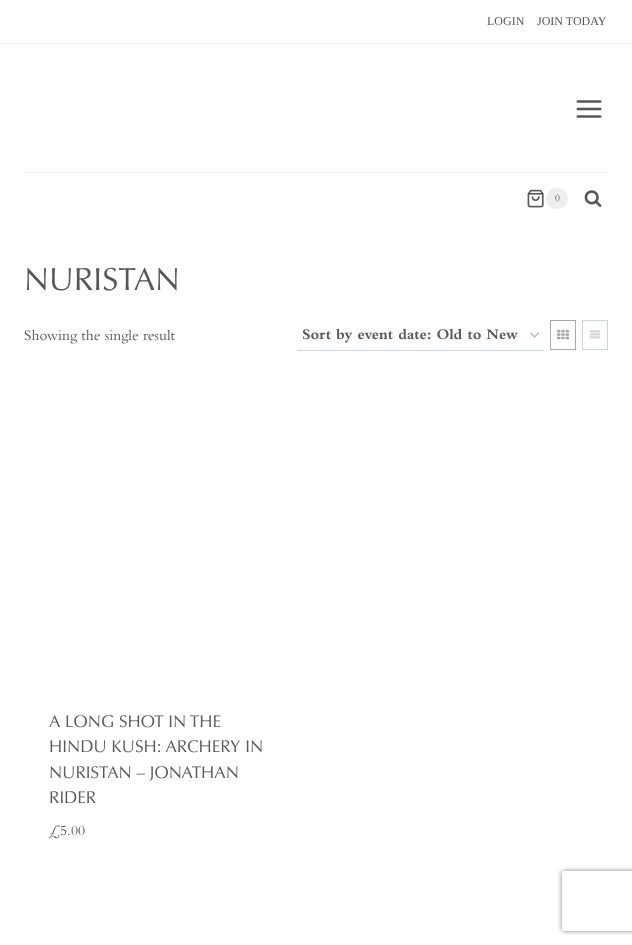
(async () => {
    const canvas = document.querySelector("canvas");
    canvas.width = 632;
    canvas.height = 945;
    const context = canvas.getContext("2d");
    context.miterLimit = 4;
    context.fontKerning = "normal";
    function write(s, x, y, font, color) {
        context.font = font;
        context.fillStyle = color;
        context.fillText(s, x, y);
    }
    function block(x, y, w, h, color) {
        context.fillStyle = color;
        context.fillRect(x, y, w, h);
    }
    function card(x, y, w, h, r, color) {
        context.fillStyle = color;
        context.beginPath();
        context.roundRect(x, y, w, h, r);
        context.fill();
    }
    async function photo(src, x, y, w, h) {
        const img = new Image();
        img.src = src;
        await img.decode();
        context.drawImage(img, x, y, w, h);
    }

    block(0, 0, 632, 945, "rgb(255, 255, 255)");
    write("LOGIN", 487, 25, "12px Liberation Serif", "rgb(83, 86, 90)");
    write("JOIN TODAY", 537, 25, "12px Liberation Serif", "rgb(83, 86, 90)");
    block(0, 43, 632, 1, "rgb(238, 238, 238)");
    await photo("media/1.png", 576, 100, 26, 18);
    block(24, 172, 584, 1, "rgb(238, 238, 238)");
    await photo("media/2.png", 527, 189, 17, 19);
    card(546, 188, 22, 21, 10.5, "rgb(238, 238, 238)");
    write("0", 555, 201, "10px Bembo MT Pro", "rgb(83, 86, 90)");
    await photo("media/3.png", 584, 190, 18, 17);
    write("NURISTAN", 24, 290, "32px Optima", "rgb(83, 86, 90)");
    write("Showing the single result", 24, 340, "15.25px Bembo MT Pro", "rgb(83, 86, 90)");
    context.beginPath();
    context.moveTo(530.5, 332.5);
    context.lineTo(534.5, 337);
    context.lineTo(539, 332.5);
    context.strokeStyle = "rgb(187, 187, 187)";
    context.lineWidth = 1.4;
    context.stroke();
    block(297, 350, 247, 1, "rgb(203, 213, 224)");
    write("Sort by event date: Old to New", 302, 339, "bold 15.25px Bembo MT Pro", "rgb(83, 86, 90)");
    context.strokeStyle = "rgb(166, 167, 170)";
    context.lineWidth = 1;
    context.strokeRect(550.5, 320.5, 25, 29);
    await photo("media/4.png", 557, 329, 12, 11);
    context.strokeStyle = "rgb(203, 213, 224)";
    context.strokeRect(582.5, 320.5, 25, 29);
    await photo("media/5.png", 589, 330, 12, 9);
    write("A LONG SHOT IN THE", 49, 727, "17px Optima", "rgb(83, 86, 90)");
    write("HINDU KUSH: ARCHERY IN", 49, 752, "17px Optima", "rgb(83, 86, 90)");
    write("NURISTAN – JONATHAN", 49, 778, "17px Optima", "rgb(83, 86, 90)");
    write("RIDER", 49, 803, "17px Optima", "rgb(83, 86, 90)");
    write("£5.00", 49, 835, "14.5px Bembo MT Pro", "rgb(83, 86, 90)");
    context.save();
    context.beginPath();
    context.moveTo(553, 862);
    context.lineTo(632, 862);
    context.lineTo(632, 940);
    context.lineTo(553, 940);
    context.closePath();
    context.moveTo(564, 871);
    context.lineTo(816, 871);
    context.bezierCurveTo(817, 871, 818, 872, 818, 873);
    context.lineTo(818, 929);
    context.bezierCurveTo(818, 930, 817, 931, 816, 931);
    context.lineTo(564, 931);
    context.bezierCurveTo(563, 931, 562, 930, 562, 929);
    context.lineTo(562, 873);
    context.bezierCurveTo(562, 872, 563, 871, 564, 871);
    context.closePath();
    context.clip("evenodd");
    context.fillStyle = "rgb(128, 128, 128)";
    context.filter = "blur(2.5px)";
    context.beginPath();
    context.roundRect(562, 871, 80, 60, 2);
    context.fill();
    context.filter = "none";
    context.restore();
})();
